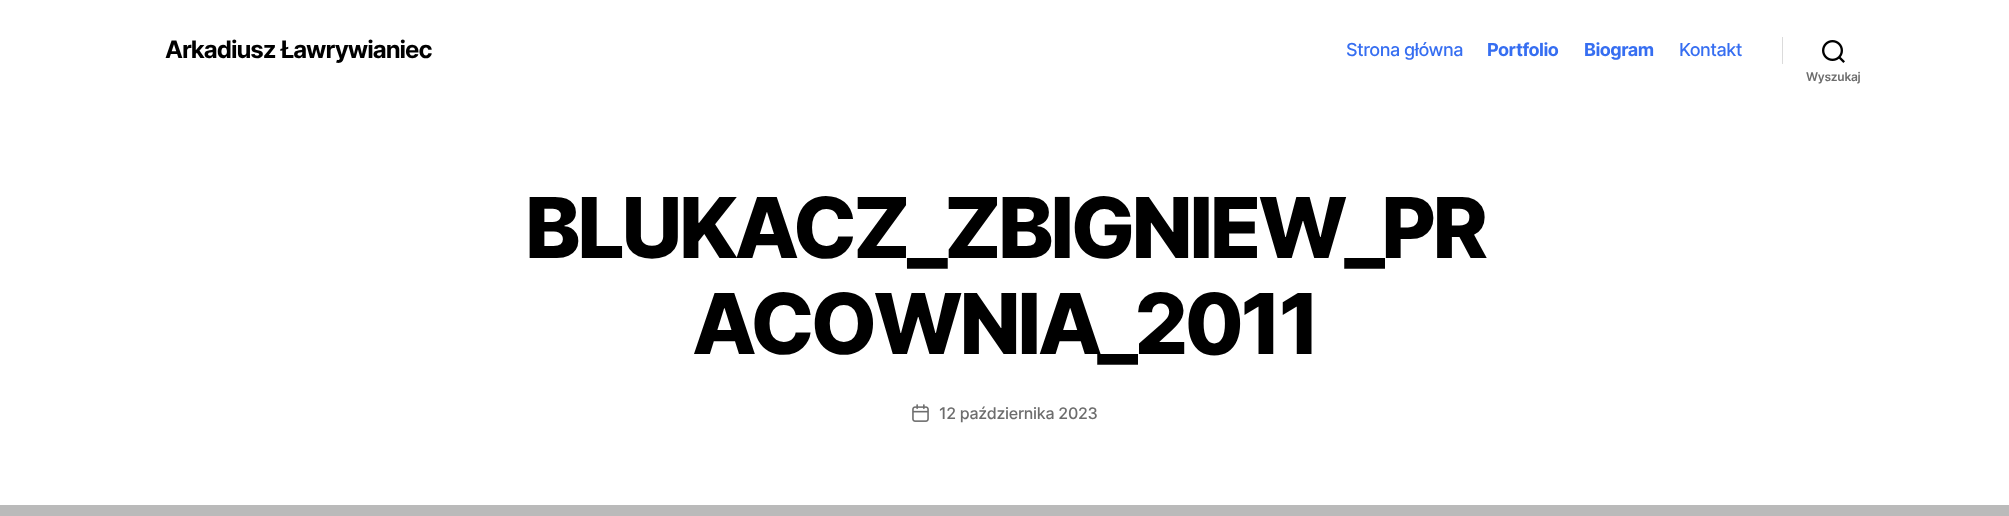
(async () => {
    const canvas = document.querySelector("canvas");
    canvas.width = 2009;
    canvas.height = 516;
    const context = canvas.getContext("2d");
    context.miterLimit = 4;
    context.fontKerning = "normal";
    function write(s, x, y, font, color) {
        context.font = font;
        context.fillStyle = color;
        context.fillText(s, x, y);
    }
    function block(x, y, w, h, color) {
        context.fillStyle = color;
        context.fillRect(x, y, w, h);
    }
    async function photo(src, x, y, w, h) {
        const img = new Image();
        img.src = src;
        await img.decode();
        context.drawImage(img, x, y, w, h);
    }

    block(0, 0, 2009, 516, "rgb(186, 186, 186)");
    block(0, 0, 2009, 505, "rgb(255, 255, 255)");
    context.letterSpacing = "-1px";
    write("Arkadiusz Ławrywianiec", 165, 58, "bold 24px Inter", "rgb(0, 0, 0)");
    context.letterSpacing = "-0.5px";
    write("Strona główna", 1346, 56, "500 18px Inter", "rgb(54, 110, 241)");
    write("Portfolio", 1487, 56, "bold 18px Inter", "rgb(54, 110, 241)");
    write("Biogram", 1584, 56, "bold 18px Inter", "rgb(54, 110, 241)");
    write("Kontakt", 1679, 56, "500 18px Inter", "rgb(54, 110, 241)");
    block(1782, 37, 1, 27, "rgb(219, 219, 219)");
    await photo("media/1.png", 1822, 40, 23, 23);
    context.letterSpacing = "-0.25px";
    write("Wyszukaj", 1806, 81, "600 12px Inter", "rgb(109, 109, 109)");
    context.letterSpacing = "-3.5px";
    write("BLUKACZ_ZBIGNIEW_PR", 525, 258, "800 84px Inter", "rgb(0, 0, 0)");
    write("ACOWNIA_2011", 692, 354, "800 84px Inter", "rgb(0, 0, 0)");
    await photo("media/2.png", 912, 404, 17, 18);
    context.letterSpacing = "-0.25px";
    write("12 października 2023", 939, 419, "500 16px Inter", "rgb(109, 109, 109)");
})();
